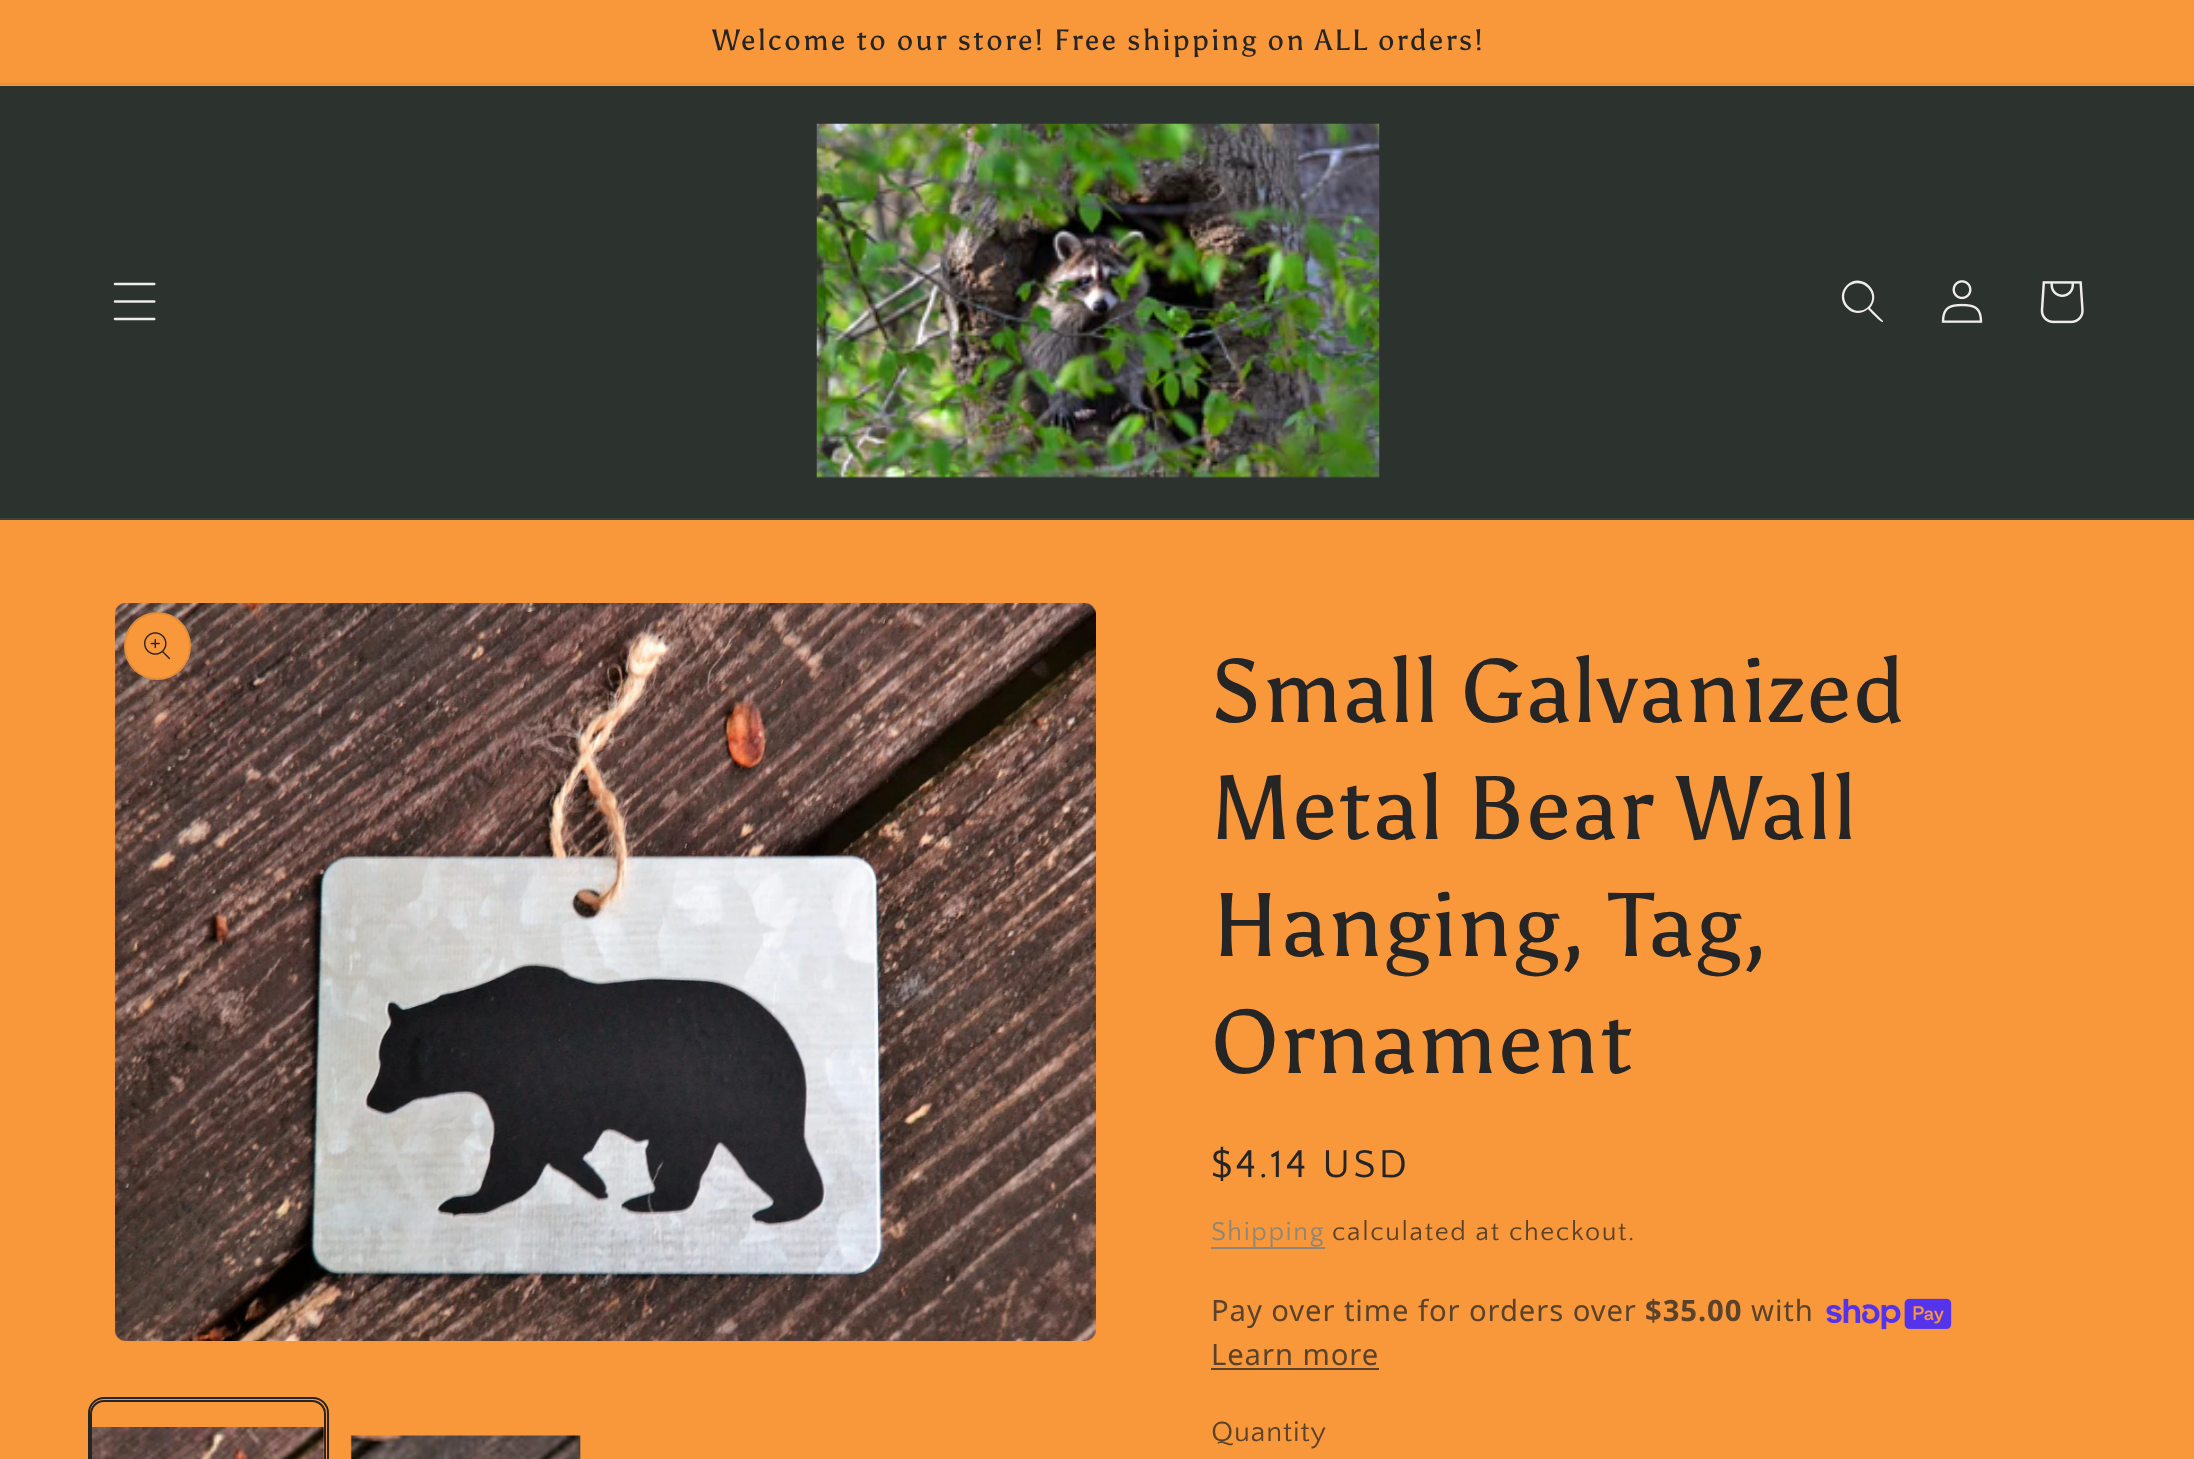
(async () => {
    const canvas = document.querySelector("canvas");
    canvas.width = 2194;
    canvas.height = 1459;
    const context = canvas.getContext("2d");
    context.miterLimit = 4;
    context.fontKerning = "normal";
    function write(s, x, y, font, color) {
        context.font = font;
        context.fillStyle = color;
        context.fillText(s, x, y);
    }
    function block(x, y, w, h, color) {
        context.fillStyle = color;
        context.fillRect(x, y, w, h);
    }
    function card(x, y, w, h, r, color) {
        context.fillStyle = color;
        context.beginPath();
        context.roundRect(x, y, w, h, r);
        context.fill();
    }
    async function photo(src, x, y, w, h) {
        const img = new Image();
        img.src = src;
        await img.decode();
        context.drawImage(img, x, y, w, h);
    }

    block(0, 0, 2194, 1459, "rgb(249, 152, 59)");
    block(0, 83, 2194, 2, "rgb(232, 143, 57)");
    context.letterSpacing = "2.25px";
    write("Welcome to our store! Free shipping on ALL orders!", 712, 50, "29.25px Asul", "rgb(37, 37, 37)");
    block(0, 86, 2194, 432, "rgb(44, 51, 47)");
    block(0, 518, 2194, 2, "rgb(60, 66, 62)");
    await photo("media/1.png", 113, 282, 43, 39);
    await photo("media/2.png", 816, 123, 564, 355);
    context.fillStyle = "rgb(239, 236, 236)";
    context.beginPath();
    context.moveTo(1868, 307);
    context.bezierCurveTo(1855, 319, 1836, 300, 1848, 287);
    context.bezierCurveTo(1861, 275, 1881, 294, 1868, 307);
    context.closePath();
    context.moveTo(1868, 309);
    context.bezierCurveTo(1853, 322, 1832, 300, 1847, 285);
    context.bezierCurveTo(1861, 271, 1884, 292, 1870, 308);
    context.lineTo(1883, 321);
    context.lineTo(1883, 322);
    context.bezierCurveTo(1881, 323, 1870, 311, 1868, 309);
    context.closePath();
    context.fill("evenodd");
    await photo("media/3.png", 1941, 280, 42, 43);
    await photo("media/4.png", 2040, 281, 44, 43);
    await photo("media/5.png", 115, 603, 981, 738);
    card(124, 612, 67, 68, 33.5, "rgb(249, 152, 59)");
    context.beginPath();
    context.roundRect(125, 613, 65, 66, 32.5);
    context.strokeStyle = "rgba(37, 37, 37, 0.1)";
    context.lineWidth = 2;
    context.stroke();
    await photo("media/6.png", 144, 632, 27, 28);
    context.beginPath();
    context.roundRect(89, 1398, 239, 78, 15);
    context.strokeStyle = "rgb(37, 37, 37)";
    context.stroke();
    context.beginPath();
    context.roundRect(91, 1401, 234, 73, 13);
    context.stroke();
    await photo("media/7.png", 92, 1427, 233, 32);
    await photo("media/8.png", 350, 1435, 231, 24);
    context.letterSpacing = "1.4px";
    write("Small Galvanized", 1211, 722, "90px Asul", "rgb(37, 37, 37)");
    write("Metal Bear Wall", 1211, 839, "90px Asul", "rgb(37, 37, 37)");
    write("Hanging, Tag,", 1211, 956, "90px Asul", "rgb(37, 37, 37)");
    write("Ornament", 1211, 1073, "90px Asul", "rgb(37, 37, 37)");
    context.letterSpacing = "3px";
    write("$4.14 USD", 1211, 1177, "40.5px Quattrocento Sans", "rgb(37, 37, 37)");
    context.letterSpacing = "1.6px";
    write("Shipping", 1211, 1240, "27px Quattrocento Sans", "rgb(142, 134, 119)");
    block(1211, 1247, 114, 2, "rgb(142, 134, 119)");
    write("calculated at checkout.", 1332, 1240, "27px Quattrocento Sans", "rgb(90, 66, 43)");
    context.letterSpacing = "0.9px";
    write("Pay over time for orders over", 1211, 1321, "29.25px Noto Sans", "rgb(90, 66, 43)");
    write("$35.00", 1645, 1321, "bold 29.25px Noto Sans", "rgb(90, 66, 43)");
    write("with", 1751, 1321, "29.25px Noto Sans", "rgb(90, 66, 43)");
    await photo("media/9.png", 1826, 1298, 126, 32);
    write("Learn more", 1211, 1365, "29.25px Noto Sans", "rgb(90, 66, 43)");
    block(1211, 1368, 168, 2, "rgb(90, 66, 43)");
    write("Quantity", 1211, 1441, "29.25px Quattrocento Sans", "rgb(90, 66, 43)");
})();
